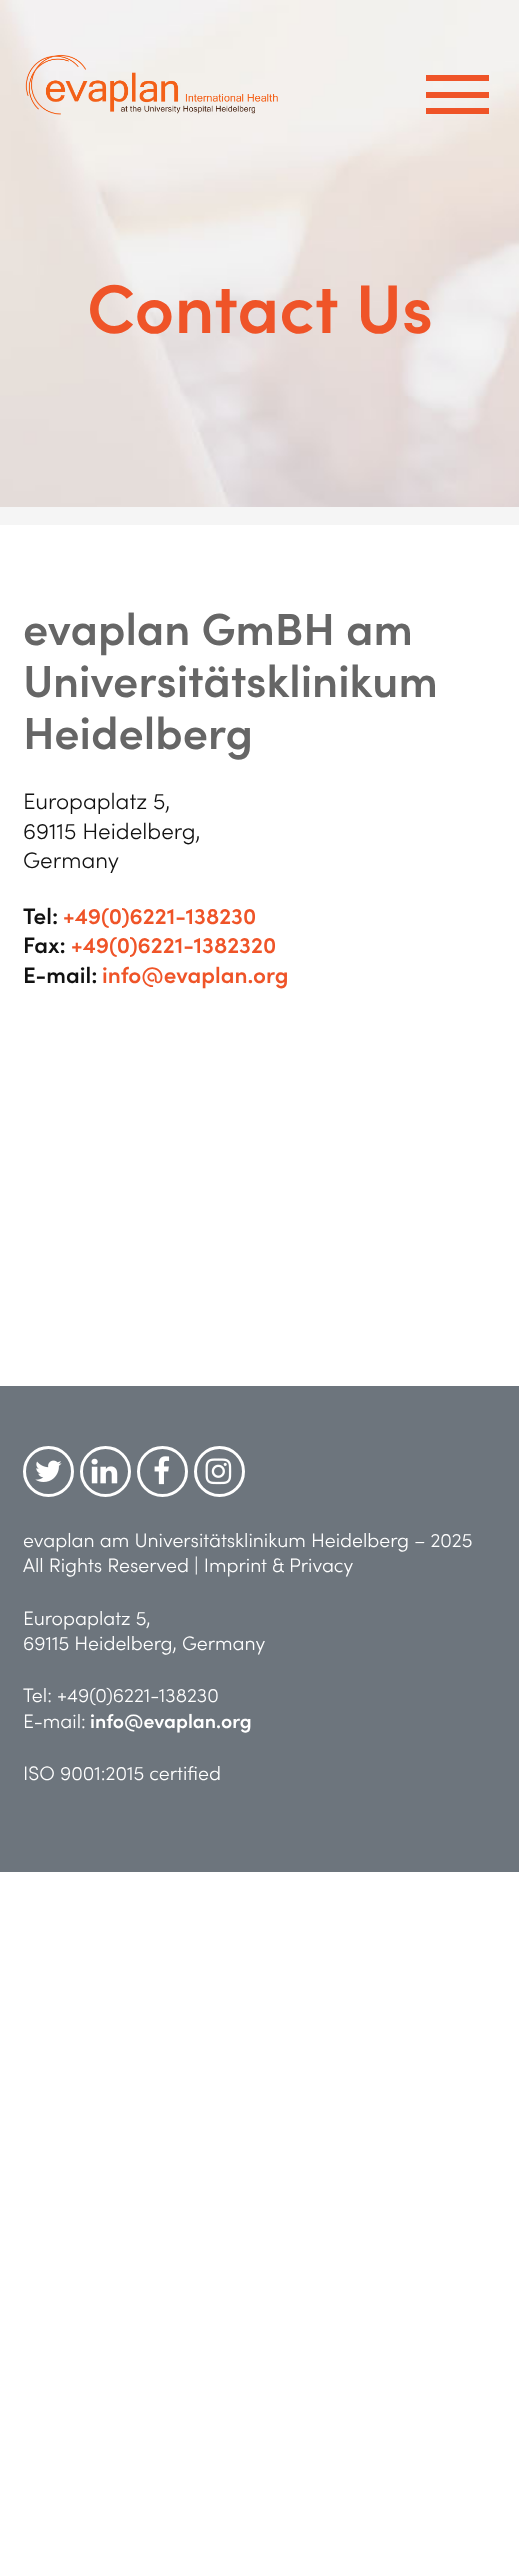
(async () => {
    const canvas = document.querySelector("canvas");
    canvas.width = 519;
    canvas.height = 2558;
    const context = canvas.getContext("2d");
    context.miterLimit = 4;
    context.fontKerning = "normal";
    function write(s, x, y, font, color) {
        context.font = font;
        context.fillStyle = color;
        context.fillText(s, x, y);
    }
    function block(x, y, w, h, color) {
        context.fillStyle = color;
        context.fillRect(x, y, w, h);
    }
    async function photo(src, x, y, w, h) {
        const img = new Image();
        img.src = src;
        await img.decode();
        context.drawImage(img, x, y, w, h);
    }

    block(0, 0, 519, 2558, "rgb(255, 255, 255)");
    await photo("media/2.png", 0, 0, 519, 507);
    await photo("media/1.png", 25, 54, 253, 61);
    block(426, 75, 63, 6, "rgb(239, 84, 40)");
    block(426, 92, 63, 6, "rgb(239, 84, 40)");
    block(426, 108, 63, 6, "rgb(239, 84, 40)");
    block(0, 507, 519, 18, "rgb(245, 245, 245)");
    write("Contact Us", 87, 333, "600 69px Sofia", "rgb(239, 84, 40)");
    write("evaplan GmBH am", 23, 645, "600 45px Sofia", "rgb(102, 102, 102)");
    write("Universitätsklinikum", 23, 697, "600 45px Sofia", "rgb(102, 102, 102)");
    write("Heidelberg", 23, 749, "600 45px Sofia", "rgb(102, 102, 102)");
    write("Europaplatz 5,", 23, 809, "300 22.5px Sofia", "rgb(17, 17, 17)");
    write("69115 Heidelberg,", 23, 839, "300 22.5px Sofia", "rgb(17, 17, 17)");
    write("Germany", 23, 868, "300 22.5px Sofia", "rgb(17, 17, 17)");
    write("Tel:", 23, 924, "600 22.5px Sofia", "rgb(17, 17, 17)");
    write("+49(0)6221-138230", 63, 924, "600 22.5px Sofia", "rgb(239, 84, 40)");
    write("Fax:", 23, 953, "600 22.5px Sofia", "rgb(17, 17, 17)");
    write("+49(0)6221-1382320", 71, 953, "600 22.5px Sofia", "rgb(239, 84, 40)");
    write("E-mail:", 23, 983, "600 22.5px Sofia", "rgb(17, 17, 17)");
    write("info@evaplan.org", 102, 983, "600 22.5px Sofia", "rgb(239, 84, 40)");
    block(0, 1386, 519, 486, "rgb(109, 117, 125)");
    context.beginPath();
    context.arc(48.5, 1471.5, 24, 0, Math.PI * 2);
    context.strokeStyle = "rgb(255, 255, 255)";
    context.lineWidth = 3;
    context.stroke();
    await photo("media/3.png", 35, 1460, 27, 22);
    context.beginPath();
    context.arc(105.5, 1471.5, 24, 0, Math.PI * 2);
    context.stroke();
    await photo("media/4.png", 91, 1458, 27, 26);
    context.beginPath();
    context.arc(162.5, 1471.5, 24, 0, Math.PI * 2);
    context.stroke();
    await photo("media/5.png", 154, 1456, 16, 29);
    context.beginPath();
    context.arc(219.5, 1471.5, 24, 0, Math.PI * 2);
    context.stroke();
    await photo("media/6.png", 205, 1458, 27, 27);
    write("evaplan am Universitätsklinikum Heidelberg – 2025", 23, 1547, "300 19.5px Sofia", "rgb(255, 255, 255)");
    write("All Rights Reserved | Imprint & Privacy", 23, 1572, "300 19.5px Sofia", "rgb(255, 255, 255)");
    write("Europaplatz 5,", 23, 1625, "300 19.5px Sofia", "rgb(255, 255, 255)");
    write("69115 Heidelberg, Germany", 23, 1650, "300 19.5px Sofia", "rgb(255, 255, 255)");
    write("Tel: +49(0)6221-138230", 23, 1702, "300 19.5px Sofia", "rgb(255, 255, 255)");
    write("E-mail:", 23, 1728, "300 19.5px Sofia", "rgb(255, 255, 255)");
    write("info@evaplan.org", 90, 1728, "600 19.5px Sofia", "rgb(255, 255, 255)");
    write("ISO 9001:2015 certified", 23, 1780, "300 19.5px Sofia", "rgb(255, 255, 255)");
})();
